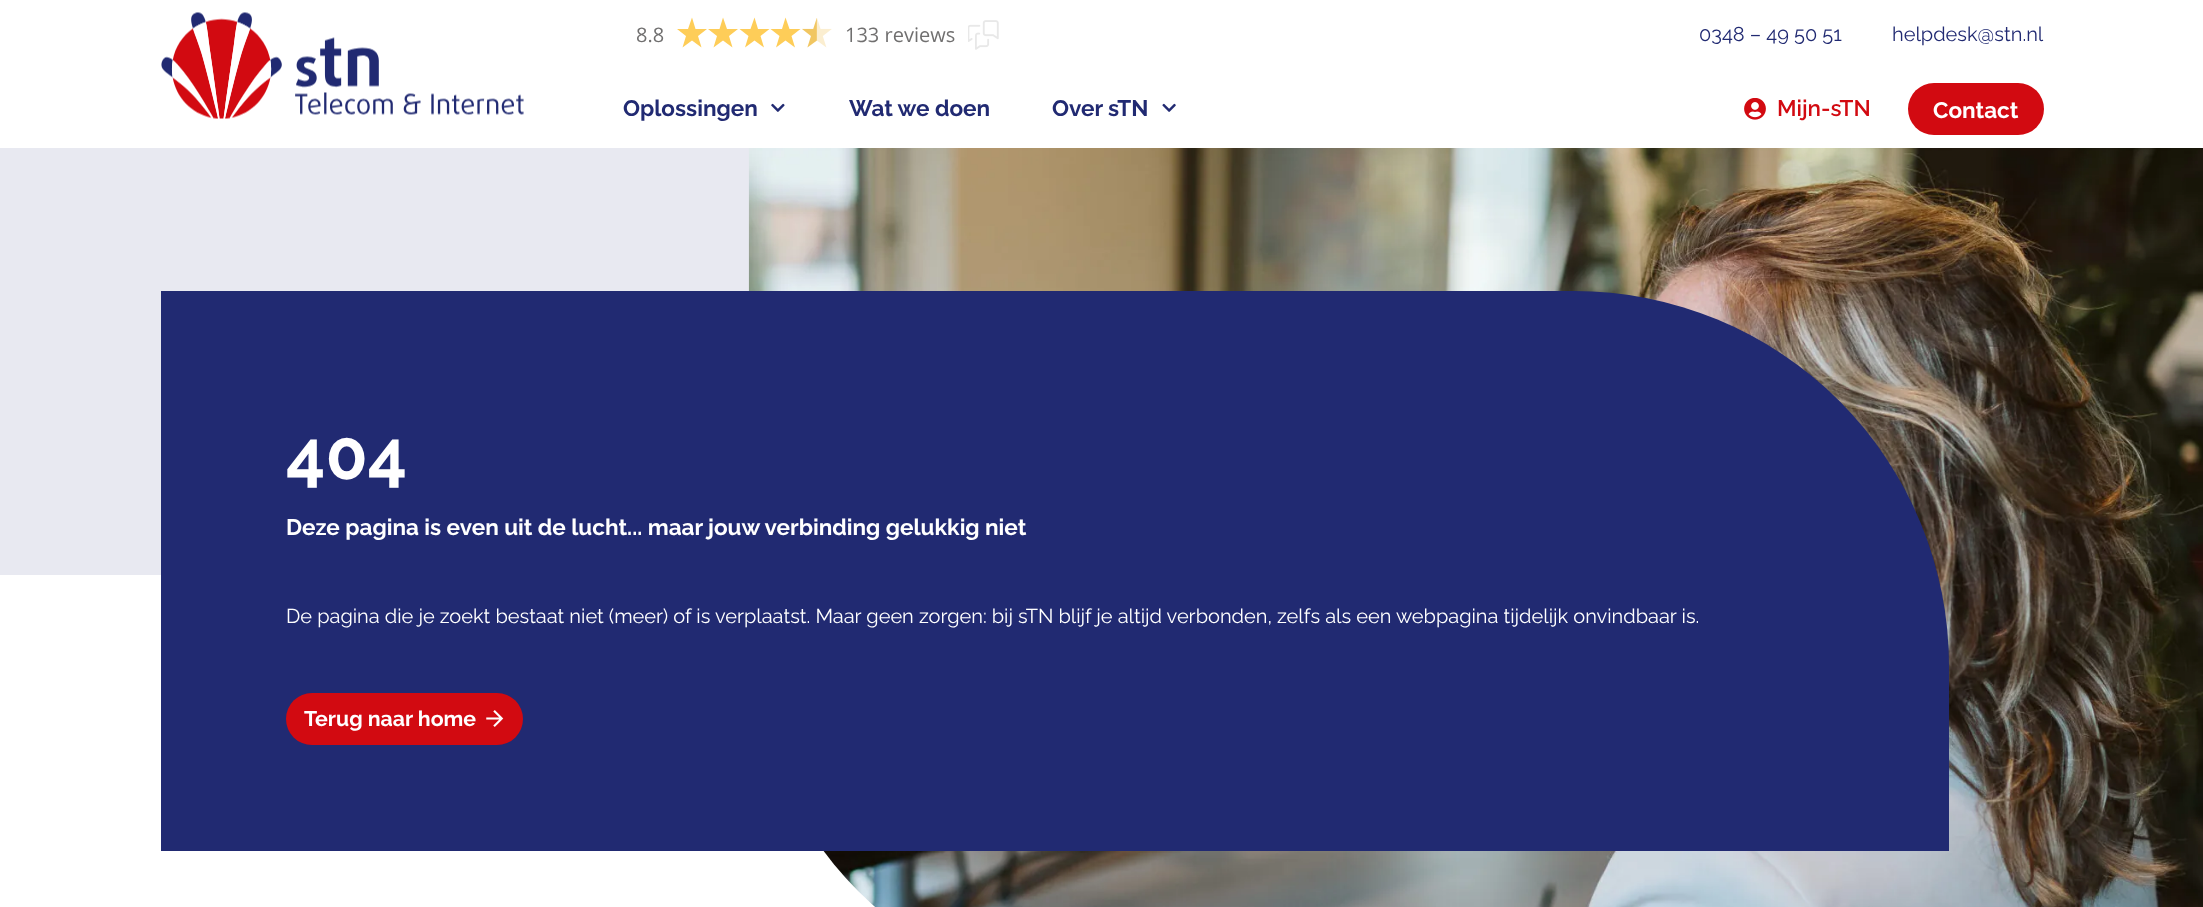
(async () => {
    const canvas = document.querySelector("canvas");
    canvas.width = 2203;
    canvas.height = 907;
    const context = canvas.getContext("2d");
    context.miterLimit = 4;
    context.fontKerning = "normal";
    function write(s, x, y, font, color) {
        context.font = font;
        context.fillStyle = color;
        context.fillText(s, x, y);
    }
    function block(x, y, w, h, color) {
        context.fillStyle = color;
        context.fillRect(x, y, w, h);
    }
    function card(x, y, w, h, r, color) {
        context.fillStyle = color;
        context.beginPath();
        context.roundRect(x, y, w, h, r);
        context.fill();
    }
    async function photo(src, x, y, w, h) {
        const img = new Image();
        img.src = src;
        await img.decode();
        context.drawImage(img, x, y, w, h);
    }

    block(0, 0, 2203, 907, "rgb(232, 233, 241)");
    block(0, 0, 2203, 148, "rgb(255, 255, 255)");
    await photo("media/1.png", 161, 12, 363, 107);
    write("8.8", 636, 42, "20px Open Sans", "rgb(112, 111, 111)");
    context.fillStyle = "rgb(254, 205, 88)";
    context.beginPath();
    context.moveTo(701.5, 47.5);
    context.lineTo(698, 36);
    context.lineTo(707, 29);
    context.lineTo(695.5, 29);
    context.lineTo(692, 17.5);
    context.lineTo(688, 29);
    context.lineTo(677, 29);
    context.lineTo(686, 36);
    context.lineTo(682.5, 47.5);
    context.lineTo(692, 40.5);
    context.closePath();
    context.moveTo(732.5, 47.5);
    context.lineTo(729, 36);
    context.lineTo(738, 29);
    context.lineTo(727, 29);
    context.lineTo(723, 17.5);
    context.lineTo(719.5, 29);
    context.lineTo(708, 29);
    context.lineTo(717, 36);
    context.lineTo(713.5, 47.5);
    context.lineTo(723, 40.5);
    context.closePath();
    context.fill();
    context.beginPath();
    context.moveTo(764, 47.5);
    context.lineTo(760.5, 36);
    context.lineTo(769.5, 29);
    context.lineTo(758, 29);
    context.lineTo(754.5, 17.5);
    context.lineTo(750.5, 29);
    context.lineTo(739.5, 29);
    context.lineTo(748.5, 36);
    context.lineTo(745, 47.5);
    context.lineTo(754.5, 40.5);
    context.closePath();
    context.moveTo(795, 47.5);
    context.lineTo(791.5, 36);
    context.lineTo(800.5, 29);
    context.lineTo(789.5, 29);
    context.lineTo(785.5, 17.5);
    context.lineTo(782, 29);
    context.lineTo(770.5, 29);
    context.lineTo(779.5, 36);
    context.lineTo(776, 47.5);
    context.lineTo(785.5, 40.5);
    context.closePath();
    context.fill();
    await photo("media/2.png", 802, 18, 30, 30);
    write("133 reviews", 845, 42, "20px Open Sans", "rgb(112, 111, 111)");
    await photo("media/3.png", 968, 20, 31, 30);
    write("0348 – 49 50 51", 1699, 41, "20px Raleway", "rgb(33, 42, 114)");
    write("helpdesk@stn.nl", 1892, 41, "20px Raleway", "rgb(33, 42, 114)");
    write("Oplossingen", 623, 116, "bold 22.5px Raleway", "rgb(33, 42, 114)");
    await photo("media/4.png", 771, 103, 14, 9);
    write("Wat we doen", 849, 116, "bold 22.5px Raleway", "rgb(33, 42, 114)");
    write("Over sTN", 1052, 116, "bold 22.5px Raleway", "rgb(33, 42, 114)");
    await photo("media/5.png", 1162, 103, 14, 9);
    await photo("media/6.png", 1744, 98, 22, 22);
    write("Mijn-sTN", 1777, 116, "600 22.5px Raleway", "rgb(210, 10, 17)");
    card(1908, 83, 136, 52, 26, "rgb(210, 10, 17)");
    write("Contact", 1933, 118, "bold 22.5px Raleway", "rgb(255, 255, 255)");
    block(0, 575, 876, 332, "rgb(255, 255, 255)");
    await photo("media/7.png", 748, 148, 1455, 759);
    context.fillStyle = "rgb(33, 42, 114)";
    context.beginPath();
    context.roundRect(161, 291, 1788, 560, [0, 375, 0, 0]);
    context.fill();
    write("404", 286, 479, "bold 69px Raleway", "rgb(255, 255, 255)");
    write("Deze pagina is even uit de lucht... maar jouw verbinding gelukkig niet", 286, 535, "bold 22.5px Raleway", "rgb(255, 255, 255)");
    write("De pagina die je zoekt bestaat niet (meer) of is verplaatst. Maar geen zorgen: bij sTN blijf je altijd verbonden, zelfs als een webpagina tijdelijk onvindbaar is.", 286, 623, "20px Raleway", "rgb(255, 255, 255)");
    card(286, 693, 237, 52, 26, "rgb(210, 10, 17)");
    write("Terug naar home", 304, 726, "bold 21.25px Raleway", "rgb(255, 255, 255)");
    await photo("media/8.png", 486, 710, 18, 17);
})();
